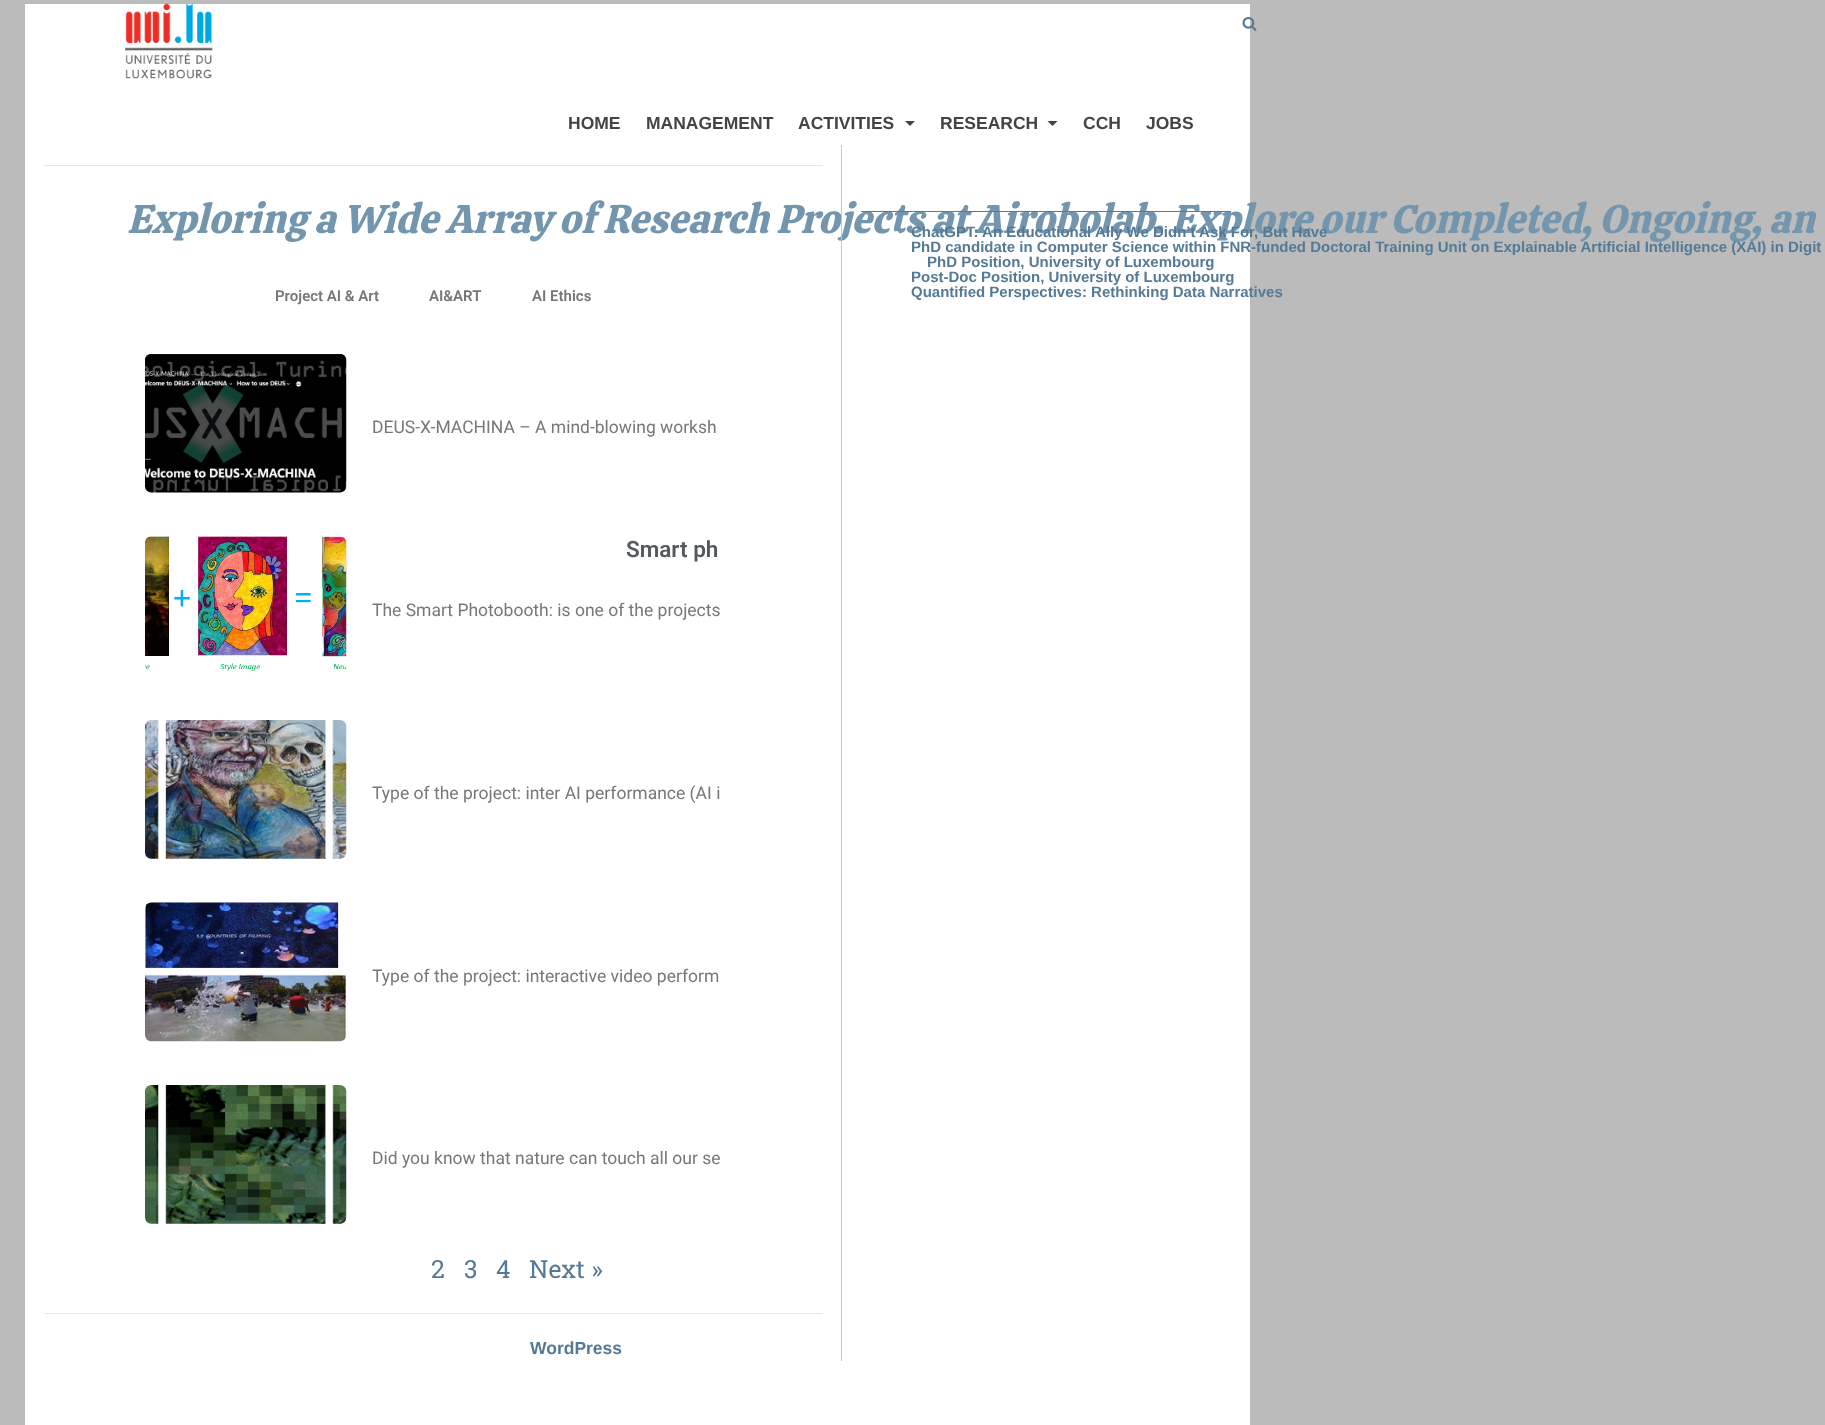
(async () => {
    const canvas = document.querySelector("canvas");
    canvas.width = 1825;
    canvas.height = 1425;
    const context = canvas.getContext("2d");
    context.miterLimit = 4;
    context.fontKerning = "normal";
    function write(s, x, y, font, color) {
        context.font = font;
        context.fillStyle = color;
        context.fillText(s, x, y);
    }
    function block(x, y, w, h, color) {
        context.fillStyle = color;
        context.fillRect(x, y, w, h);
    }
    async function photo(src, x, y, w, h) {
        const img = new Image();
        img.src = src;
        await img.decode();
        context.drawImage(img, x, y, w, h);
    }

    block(0, 0, 1825, 1425, "rgb(187, 187, 187)");
    block(25, 4, 1225, 1421, "rgb(255, 255, 255)");
    await photo("media/1.png", 125, 3, 88, 76);
    await photo("media/2.png", 1242, 17, 15, 14);
    write("HOME", 568, 129, "bold 17.5px Liberation Sans", "rgb(68, 68, 68)");
    write("MANAGEMENT", 646, 129, "bold 17.5px Liberation Sans", "rgb(68, 68, 68)");
    write("ACTIVITIES", 798, 129, "bold 17.5px Liberation Sans", "rgb(68, 68, 68)");
    context.beginPath();
    context.moveTo(905, 121);
    context.lineTo(915, 121);
    context.lineTo(910, 126);
    context.closePath();
    context.fill();
    write("RESEARCH", 940, 129, "bold 17.5px Liberation Sans", "rgb(68, 68, 68)");
    context.beginPath();
    context.moveTo(1047.5, 121);
    context.lineTo(1057.5, 121);
    context.lineTo(1052.5, 126);
    context.closePath();
    context.fill();
    write("CCH", 1083, 129, "bold 17.5px Liberation Sans", "rgb(68, 68, 68)");
    write("JOBS", 1146, 129, "bold 17.5px Liberation Sans", "rgb(68, 68, 68)");
    block(44, 165, 779, 1, "rgb(230, 230, 230)");
    write("Exploring a Wide Array of Research Projects at Airobolab. Explore our Completed, Ongoing, an", 127, 233, "italic 40px Calistoga", "rgb(115, 149, 174)");
    write("Project AI & Art", 275, 301, "600 15px Roboto", "rgb(119, 119, 119)");
    write("AI&ART", 429, 301, "600 15px Roboto", "rgb(119, 119, 119)");
    write("AI Ethics", 532, 301, "600 15px Roboto", "rgb(119, 119, 119)");
    await photo("media/3.png", 145, 354, 202, 139);
    write("DEUS-X-MACHINA – A mind-blowing worksh", 372, 433, "17.5px Roboto", "rgb(119, 119, 119)");
    await photo("media/4.png", 145, 536, 202, 135);
    write("Smart ph", 626, 557, "600 22.5px Roboto", "rgb(84, 89, 95)");
    write("The Smart Photobooth: is one of the projects", 372, 616, "17.5px Roboto", "rgb(119, 119, 119)");
    await photo("media/5.png", 145, 720, 202, 139);
    write("Type of the project: inter AI performance (AI i", 372, 799, "17.5px Roboto", "rgb(119, 119, 119)");
    await photo("media/6.png", 145, 902, 202, 140);
    write("Type of the project: interactive video perform", 372, 982, "17.5px Roboto", "rgb(119, 119, 119)");
    await photo("media/7.png", 145, 1085, 202, 139);
    write("Did you know that nature can touch all our se", 372, 1164, "17.5px Roboto", "rgb(119, 119, 119)");
    write("2", 431, 1278, "25px Roboto Slab", "rgb(85, 122, 149)");
    write("3", 464, 1278, "25px Roboto Slab", "rgb(85, 122, 149)");
    write("4", 496, 1278, "25px Roboto Slab", "rgb(85, 122, 149)");
    write("Next »", 529, 1278, "25px Roboto Slab", "rgb(85, 122, 149)");
    block(44, 1313, 779, 1, "rgb(230, 230, 230)");
    write("WordPress", 530, 1354, "bold 17.5px Liberation Sans", "rgb(85, 122, 149)");
    block(841, 145, 1, 1216, "rgb(200, 200, 200)");
    block(861, 211, 370, 1, "rgb(85, 122, 149)");
    context.fillStyle = "rgb(255, 255, 255)";
    context.beginPath();
    context.arc(896.5, 233.5, 2.5, 0, Math.PI * 2);
    context.fill();
    write("ChatGPT: An Educational Ally We Didn’t Ask For, But Have", 911, 237, "bold 15px Liberation Sans", "rgb(85, 122, 149)");
    write("PhD candidate in Computer Science within FNR-funded Doctoral Training Unit on Explainable Artificial Intelligence (XAI) in Digit", 911, 252, "bold 15px Liberation Sans", "rgb(85, 122, 149)");
    write("PhD Position, University of Luxembourg", 927, 267, "bold 15px Liberation Sans", "rgb(85, 122, 149)");
    write("Post-Doc Position, University of Luxembourg", 911, 282, "bold 15px Liberation Sans", "rgb(85, 122, 149)");
    write("Quantified Perspectives: Rethinking Data Narratives", 911, 297, "bold 15px Liberation Sans", "rgb(85, 122, 149)");
})();
